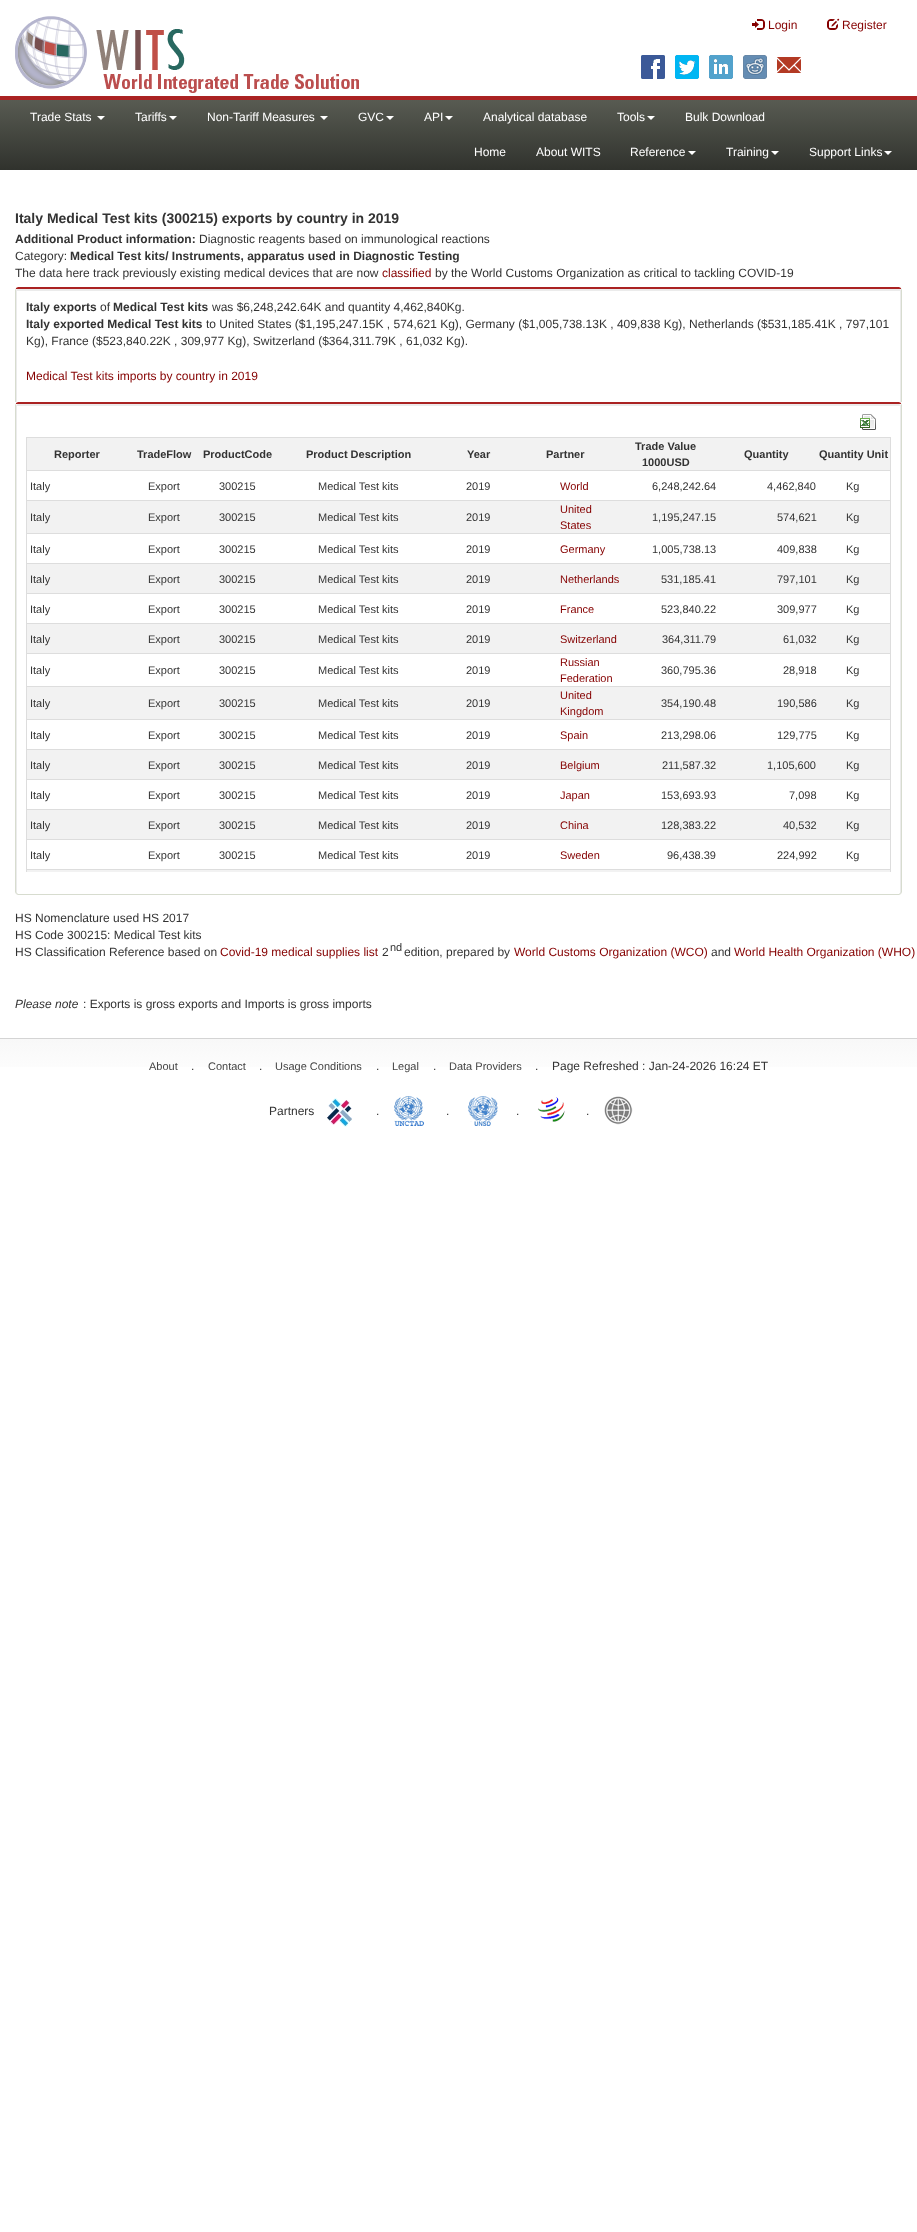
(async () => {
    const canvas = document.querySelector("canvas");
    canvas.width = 917;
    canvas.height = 2232;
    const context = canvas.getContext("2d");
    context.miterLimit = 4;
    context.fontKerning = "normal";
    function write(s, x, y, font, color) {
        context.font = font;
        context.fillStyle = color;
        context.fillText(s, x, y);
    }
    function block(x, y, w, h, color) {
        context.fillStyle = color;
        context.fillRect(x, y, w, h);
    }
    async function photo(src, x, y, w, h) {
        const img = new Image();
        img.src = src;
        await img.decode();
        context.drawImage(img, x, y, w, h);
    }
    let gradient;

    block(0, 0, 917, 2232, "rgb(255, 255, 255)");
    block(0, 96, 917, 4, "rgb(170, 34, 34)");
    await photo("media/1.png", 15, 16, 344, 77);
    await photo("media/2.png", 752, 19, 13, 11);
    write("Login", 768, 29, "12px Liberation Sans", "rgb(133, 0, 0)");
    await photo("media/3.png", 827, 18, 13, 12);
    write("Register", 842, 29, "12px Liberation Sans", "rgb(133, 0, 0)");
    await photo("media/4.png", 641, 55, 24, 24);
    await photo("media/5.png", 675, 55, 24, 24);
    await photo("media/6.png", 709, 55, 24, 24);
    await photo("media/7.png", 743, 55, 24, 24);
    await photo("media/8.png", 777, 57, 24, 16);
    gradient = context.createLinearGradient(459, 100, 459, 170);
    gradient.addColorStop(0, "rgb(88, 91, 82)");
    gradient.addColorStop(1, "rgb(48, 50, 45)");
    context.fillStyle = gradient;
    context.fillRect(0, 100, 917, 70);
    write("Trade Stats", 30, 121, "12px Liberation Sans", "rgb(255, 255, 255)");
    context.beginPath();
    context.moveTo(97, 116);
    context.lineTo(105, 116);
    context.lineTo(101, 120);
    context.closePath();
    context.fill();
    write("Tariffs", 135, 121, "12px Liberation Sans", "rgb(255, 255, 255)");
    context.beginPath();
    context.moveTo(169, 116);
    context.lineTo(177, 116);
    context.lineTo(173, 120);
    context.closePath();
    context.fill();
    write("Non-Tariff Measures", 207, 121, "12px Liberation Sans", "rgb(255, 255, 255)");
    context.beginPath();
    context.moveTo(320, 116);
    context.lineTo(328, 116);
    context.lineTo(324, 120);
    context.closePath();
    context.fill();
    write("GVC", 358, 121, "12px Liberation Sans", "rgb(255, 255, 255)");
    context.beginPath();
    context.moveTo(386, 116);
    context.lineTo(394, 116);
    context.lineTo(390, 120);
    context.closePath();
    context.fill();
    write("API", 424, 121, "12px Liberation Sans", "rgb(255, 255, 255)");
    context.beginPath();
    context.moveTo(445, 116);
    context.lineTo(453, 116);
    context.lineTo(449, 120);
    context.closePath();
    context.fill();
    write("Analytical database", 483, 121, "12px Liberation Sans", "rgb(255, 255, 255)");
    write("Tools", 617, 121, "12px Liberation Sans", "rgb(255, 255, 255)");
    context.beginPath();
    context.moveTo(647, 116);
    context.lineTo(655, 116);
    context.lineTo(651, 120);
    context.closePath();
    context.fill();
    write("Bulk Download", 685, 121, "12px Liberation Sans", "rgb(255, 255, 255)");
    write("Home", 474, 156, "12px Liberation Sans", "rgb(255, 255, 255)");
    write("About WITS", 536, 156, "12px Liberation Sans", "rgb(255, 255, 255)");
    write("Reference", 630, 156, "12px Liberation Sans", "rgb(255, 255, 255)");
    context.beginPath();
    context.moveTo(688, 151);
    context.lineTo(696, 151);
    context.lineTo(692, 155);
    context.closePath();
    context.fill();
    write("Training", 726, 156, "12px Liberation Sans", "rgb(255, 255, 255)");
    context.beginPath();
    context.moveTo(771, 151);
    context.lineTo(779, 151);
    context.lineTo(775, 155);
    context.closePath();
    context.fill();
    write("Support Links", 809, 156, "12px Liberation Sans", "rgb(255, 255, 255)");
    context.beginPath();
    context.moveTo(884, 151);
    context.lineTo(892, 151);
    context.lineTo(888, 155);
    context.closePath();
    context.fill();
    write("Italy Medical Test kits (300215) exports by country in 2019", 15, 223, "bold 14px Liberation Sans", "rgb(51, 51, 51)");
    write("Additional Product information:", 15, 243, "bold 12px Liberation Sans", "rgb(51, 51, 51)");
    write("Diagnostic reagents based on immunological reactions", 199, 243, "12px Liberation Sans", "rgb(51, 51, 51)");
    write("Category:", 15, 260, "12px Liberation Sans", "rgb(51, 51, 51)");
    write("Medical Test kits/ Instruments, apparatus used in Diagnostic Testing", 70, 260, "bold 12px Liberation Sans", "rgb(51, 51, 51)");
    write("The data here track previously existing medical devices that are now", 15, 277, "12px Liberation Sans", "rgb(51, 51, 51)");
    write("classified", 382, 277, "12px Liberation Sans", "rgb(133, 0, 0)");
    write("by the World Customs Organization as critical to tackling COVID-19", 435, 277, "12px Liberation Sans", "rgb(51, 51, 51)");
    context.fillStyle = "rgb(235, 235, 235)";
    context.beginPath();
    context.moveTo(18, 289);
    context.bezierCurveTo(17, 289, 16, 289, 16, 290);
    context.lineTo(16, 434);
    context.bezierCurveTo(16, 435, 16, 435, 17, 436);
    context.lineTo(17, 291);
    context.lineTo(900, 291);
    context.lineTo(900, 436);
    context.bezierCurveTo(901, 435, 901, 435, 901, 434);
    context.lineTo(901, 290);
    context.bezierCurveTo(901, 289, 900, 289, 899, 289);
    context.closePath();
    context.fill();
    context.fillStyle = "rgb(170, 34, 34)";
    context.beginPath();
    context.moveTo(18, 287);
    context.lineTo(16, 288);
    context.lineTo(16, 289);
    context.lineTo(18, 289);
    context.lineTo(899, 289);
    context.lineTo(901, 289);
    context.lineTo(901, 288);
    context.lineTo(899, 287);
    context.closePath();
    context.fill();
    context.fillStyle = "rgb(215, 220, 207)";
    context.beginPath();
    context.moveTo(902, 434);
    context.lineTo(902, 290);
    context.lineTo(901, 288);
    context.lineTo(901, 289);
    context.lineTo(901, 434);
    context.lineTo(900, 435);
    context.lineTo(901, 436);
    context.closePath();
    context.fill();
    context.beginPath();
    context.moveTo(15, 290);
    context.lineTo(15, 434);
    context.lineTo(16, 436);
    context.lineTo(17, 435);
    context.lineTo(16, 434);
    context.lineTo(16, 289);
    context.lineTo(16, 288);
    context.closePath();
    context.fill();
    write("Italy exports", 26, 311, "bold 12px Liberation Sans", "rgb(51, 51, 51)");
    write("of", 100, 311, "12px Liberation Sans", "rgb(51, 51, 51)");
    write("Medical Test kits", 113, 311, "bold 12px Liberation Sans", "rgb(51, 51, 51)");
    write("was $6,248,242.64K and quantity 4,462,840Kg.", 212, 311, "12px Liberation Sans", "rgb(51, 51, 51)");
    write("Italy exported Medical Test kits", 26, 328, "bold 12px Liberation Sans", "rgb(51, 51, 51)");
    write("to United States ($1,195,247.15K , 574,621 Kg), Germany ($1,005,738.13K , 409,838 Kg), Netherlands ($531,185.41K , 797,101", 206, 328, "12px Liberation Sans", "rgb(51, 51, 51)");
    write("Kg), France ($523,840.22K , 309,977 Kg), Switzerland ($364,311.79K , 61,032 Kg).", 26, 345, "12px Liberation Sans", "rgb(51, 51, 51)");
    write("Medical Test kits imports by country in 2019", 26, 380, "12px Liberation Sans", "rgb(133, 0, 0)");
    block(15, 402, 887, 34, "rgb(255, 255, 255)");
    context.fillStyle = "rgb(235, 235, 235)";
    context.beginPath();
    context.moveTo(18, 404);
    context.lineTo(16, 405);
    context.lineTo(16, 892);
    context.lineTo(17, 894);
    context.lineTo(17, 406);
    context.lineTo(900, 406);
    context.lineTo(900, 894);
    context.lineTo(901, 892);
    context.lineTo(901, 405);
    context.lineTo(899, 404);
    context.closePath();
    context.fill();
    context.fillStyle = "rgb(170, 34, 34)";
    context.beginPath();
    context.moveTo(18, 402);
    context.lineTo(16, 403);
    context.lineTo(16, 404);
    context.lineTo(18, 404);
    context.lineTo(899, 404);
    context.lineTo(901, 404);
    context.lineTo(901, 403);
    context.lineTo(899, 402);
    context.closePath();
    context.fill();
    context.fillStyle = "rgb(215, 220, 207)";
    context.beginPath();
    context.moveTo(902, 892);
    context.lineTo(902, 405);
    context.lineTo(901, 403);
    context.lineTo(901, 404);
    context.lineTo(901, 892);
    context.lineTo(900, 893);
    context.lineTo(901, 894);
    context.closePath();
    context.fill();
    context.beginPath();
    context.moveTo(18, 895);
    context.lineTo(899, 895);
    context.lineTo(901, 894);
    context.lineTo(900, 893);
    context.lineTo(899, 894);
    context.lineTo(18, 894);
    context.lineTo(17, 893);
    context.lineTo(16, 894);
    context.closePath();
    context.fill();
    context.beginPath();
    context.moveTo(15, 405);
    context.lineTo(15, 892);
    context.lineTo(16, 894);
    context.lineTo(17, 893);
    context.lineTo(16, 892);
    context.lineTo(16, 404);
    context.lineTo(16, 403);
    context.closePath();
    context.fill();
    await photo("media/9.png", 860, 414, 16, 16);
    write("HS Nomenclature used HS 2017", 15, 922, "12px Liberation Sans", "rgb(51, 51, 51)");
    write("HS Code 300215: Medical Test kits", 15, 939, "12px Liberation Sans", "rgb(51, 51, 51)");
    write("HS Classification Reference based on", 15, 956, "12px Liberation Sans", "rgb(51, 51, 51)");
    write("World Health Organization (WHO)", 734, 956, "12px Liberation Sans", "rgb(133, 0, 0)");
    write("Please note", 15, 1008, "italic 12px Liberation Sans", "rgb(51, 51, 51)");
    gradient = context.createLinearGradient(459, 1039, 459, 1083);
    gradient.addColorStop(0, "rgb(248, 248, 248)");
    gradient.addColorStop(1, "rgb(255, 255, 255)");
    context.fillStyle = gradient;
    context.fillRect(0, 1039, 917, 28);
    block(0, 1038, 917, 1, "rgb(212, 212, 212)");
    await photo("media/10.png", 327, 1098, 25, 29);
    await photo("media/11.png", 394, 1096, 30, 30);
    await photo("media/12.png", 468, 1096, 30, 30);
    await photo("media/13.png", 538, 1097, 27, 25);
    await photo("media/14.png", 604, 1096, 29, 29);
    context.save();
    context.beginPath();
    context.rect(26, 437, 865, 435);
    context.clip();
    context.strokeStyle = "rgb(221, 221, 221)";
    context.strokeRect(26.5, 437.5, 864, 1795);
    context.restore();
    block(27, 438, 863, 32, "rgb(242, 242, 242)");
    block(27, 470, 863, 1, "rgb(221, 221, 221)");
    write("Reporter", 54, 458, "bold 11px Liberation Sans", "rgb(51, 51, 51)");
    write("TradeFlow", 137, 458, "bold 11px Liberation Sans", "rgb(51, 51, 51)");
    write("ProductCode", 203, 458, "bold 11px Liberation Sans", "rgb(51, 51, 51)");
    write("Product Description", 306, 458, "bold 11px Liberation Sans", "rgb(51, 51, 51)");
    write("Year", 467, 458, "bold 11px Liberation Sans", "rgb(51, 51, 51)");
    write("Partner", 546, 458, "bold 11px Liberation Sans", "rgb(51, 51, 51)");
    write("Trade Value", 635, 450, "bold 11px Liberation Sans", "rgb(51, 51, 51)");
    write("1000USD", 642, 466, "bold 11px Liberation Sans", "rgb(51, 51, 51)");
    write("Quantity", 744, 458, "bold 11px Liberation Sans", "rgb(51, 51, 51)");
    write("Quantity Unit", 819, 458, "bold 11px Liberation Sans", "rgb(51, 51, 51)");
    block(27, 500, 863, 1, "rgb(221, 221, 221)");
    write("Italy", 30, 490, "11px Liberation Sans", "rgb(51, 51, 51)");
    write("Export", 148, 490, "11px Liberation Sans", "rgb(51, 51, 51)");
    write("300215", 219, 490, "11px Liberation Sans", "rgb(51, 51, 51)");
    write("Medical Test kits", 318, 490, "11px Liberation Sans", "rgb(51, 51, 51)");
    write("2019", 466, 490, "11px Liberation Sans", "rgb(51, 51, 51)");
    write("World", 560, 490, "11px Liberation Sans", "rgb(133, 0, 0)");
    write("6,248,242.64", 652, 490, "11px Liberation Sans", "rgb(51, 51, 51)");
    write("4,462,840", 767, 490, "11px Liberation Sans", "rgb(51, 51, 51)");
    write("Kg", 846, 490, "11px Liberation Sans", "rgb(51, 51, 51)");
    block(27, 501, 863, 32, "rgb(242, 242, 242)");
    block(27, 533, 863, 1, "rgb(221, 221, 221)");
    write("Italy", 30, 521, "11px Liberation Sans", "rgb(51, 51, 51)");
    write("Export", 148, 521, "11px Liberation Sans", "rgb(51, 51, 51)");
    write("300215", 219, 521, "11px Liberation Sans", "rgb(51, 51, 51)");
    write("Medical Test kits", 318, 521, "11px Liberation Sans", "rgb(51, 51, 51)");
    write("2019", 466, 521, "11px Liberation Sans", "rgb(51, 51, 51)");
    write("United", 560, 513, "11px Liberation Sans", "rgb(133, 0, 0)");
    write("States", 560, 529, "11px Liberation Sans", "rgb(133, 0, 0)");
    write("1,195,247.15", 652, 521, "11px Liberation Sans", "rgb(51, 51, 51)");
    write("574,621", 777, 521, "11px Liberation Sans", "rgb(51, 51, 51)");
    write("Kg", 846, 521, "11px Liberation Sans", "rgb(51, 51, 51)");
    block(27, 563, 863, 1, "rgb(221, 221, 221)");
    write("Italy", 30, 553, "11px Liberation Sans", "rgb(51, 51, 51)");
    write("Export", 148, 553, "11px Liberation Sans", "rgb(51, 51, 51)");
    write("300215", 219, 553, "11px Liberation Sans", "rgb(51, 51, 51)");
    write("Medical Test kits", 318, 553, "11px Liberation Sans", "rgb(51, 51, 51)");
    write("2019", 466, 553, "11px Liberation Sans", "rgb(51, 51, 51)");
    write("Germany", 560, 553, "11px Liberation Sans", "rgb(133, 0, 0)");
    write("1,005,738.13", 652, 553, "11px Liberation Sans", "rgb(51, 51, 51)");
    write("409,838", 777, 553, "11px Liberation Sans", "rgb(51, 51, 51)");
    write("Kg", 846, 553, "11px Liberation Sans", "rgb(51, 51, 51)");
    block(27, 564, 863, 29, "rgb(242, 242, 242)");
    block(27, 593, 863, 1, "rgb(221, 221, 221)");
    write("Italy", 30, 583, "11px Liberation Sans", "rgb(51, 51, 51)");
    write("Export", 148, 583, "11px Liberation Sans", "rgb(51, 51, 51)");
    write("300215", 219, 583, "11px Liberation Sans", "rgb(51, 51, 51)");
    write("Medical Test kits", 318, 583, "11px Liberation Sans", "rgb(51, 51, 51)");
    write("2019", 466, 583, "11px Liberation Sans", "rgb(51, 51, 51)");
    write("Netherlands", 560, 583, "11px Liberation Sans", "rgb(133, 0, 0)");
    write("531,185.41", 661, 583, "11px Liberation Sans", "rgb(51, 51, 51)");
    write("797,101", 777, 583, "11px Liberation Sans", "rgb(51, 51, 51)");
    write("Kg", 846, 583, "11px Liberation Sans", "rgb(51, 51, 51)");
    block(27, 623, 863, 1, "rgb(221, 221, 221)");
    write("Italy", 30, 613, "11px Liberation Sans", "rgb(51, 51, 51)");
    write("Export", 148, 613, "11px Liberation Sans", "rgb(51, 51, 51)");
    write("300215", 219, 613, "11px Liberation Sans", "rgb(51, 51, 51)");
    write("Medical Test kits", 318, 613, "11px Liberation Sans", "rgb(51, 51, 51)");
    write("2019", 466, 613, "11px Liberation Sans", "rgb(51, 51, 51)");
    write("France", 560, 613, "11px Liberation Sans", "rgb(133, 0, 0)");
    write("523,840.22", 661, 613, "11px Liberation Sans", "rgb(51, 51, 51)");
    write("309,977", 777, 613, "11px Liberation Sans", "rgb(51, 51, 51)");
    write("Kg", 846, 613, "11px Liberation Sans", "rgb(51, 51, 51)");
    block(27, 624, 863, 29, "rgb(242, 242, 242)");
    block(27, 653, 863, 1, "rgb(221, 221, 221)");
    write("Italy", 30, 643, "11px Liberation Sans", "rgb(51, 51, 51)");
    write("Export", 148, 643, "11px Liberation Sans", "rgb(51, 51, 51)");
    write("300215", 219, 643, "11px Liberation Sans", "rgb(51, 51, 51)");
    write("Medical Test kits", 318, 643, "11px Liberation Sans", "rgb(51, 51, 51)");
    write("2019", 466, 643, "11px Liberation Sans", "rgb(51, 51, 51)");
    write("Switzerland", 560, 643, "11px Liberation Sans", "rgb(133, 0, 0)");
    write("364,311.79", 662, 643, "11px Liberation Sans", "rgb(51, 51, 51)");
    write("61,032", 783, 643, "11px Liberation Sans", "rgb(51, 51, 51)");
    write("Kg", 846, 643, "11px Liberation Sans", "rgb(51, 51, 51)");
    block(27, 686, 863, 1, "rgb(221, 221, 221)");
    write("Italy", 30, 674, "11px Liberation Sans", "rgb(51, 51, 51)");
    write("Export", 148, 674, "11px Liberation Sans", "rgb(51, 51, 51)");
    write("300215", 219, 674, "11px Liberation Sans", "rgb(51, 51, 51)");
    write("Medical Test kits", 318, 674, "11px Liberation Sans", "rgb(51, 51, 51)");
    write("2019", 466, 674, "11px Liberation Sans", "rgb(51, 51, 51)");
    write("Russian", 560, 666, "11px Liberation Sans", "rgb(133, 0, 0)");
    write("Federation", 560, 682, "11px Liberation Sans", "rgb(133, 0, 0)");
    write("360,795.36", 661, 674, "11px Liberation Sans", "rgb(51, 51, 51)");
    write("28,918", 783, 674, "11px Liberation Sans", "rgb(51, 51, 51)");
    write("Kg", 846, 674, "11px Liberation Sans", "rgb(51, 51, 51)");
    block(27, 687, 863, 32, "rgb(242, 242, 242)");
    block(27, 719, 863, 1, "rgb(221, 221, 221)");
    write("Italy", 30, 707, "11px Liberation Sans", "rgb(51, 51, 51)");
    write("Export", 148, 707, "11px Liberation Sans", "rgb(51, 51, 51)");
    write("300215", 219, 707, "11px Liberation Sans", "rgb(51, 51, 51)");
    write("Medical Test kits", 318, 707, "11px Liberation Sans", "rgb(51, 51, 51)");
    write("2019", 466, 707, "11px Liberation Sans", "rgb(51, 51, 51)");
    write("United", 560, 699, "11px Liberation Sans", "rgb(133, 0, 0)");
    write("Kingdom", 560, 715, "11px Liberation Sans", "rgb(133, 0, 0)");
    write("354,190.48", 661, 707, "11px Liberation Sans", "rgb(51, 51, 51)");
    write("190,586", 777, 707, "11px Liberation Sans", "rgb(51, 51, 51)");
    write("Kg", 846, 707, "11px Liberation Sans", "rgb(51, 51, 51)");
    block(27, 749, 863, 1, "rgb(221, 221, 221)");
    write("Italy", 30, 739, "11px Liberation Sans", "rgb(51, 51, 51)");
    write("Export", 148, 739, "11px Liberation Sans", "rgb(51, 51, 51)");
    write("300215", 219, 739, "11px Liberation Sans", "rgb(51, 51, 51)");
    write("Medical Test kits", 318, 739, "11px Liberation Sans", "rgb(51, 51, 51)");
    write("2019", 466, 739, "11px Liberation Sans", "rgb(51, 51, 51)");
    write("Spain", 560, 739, "11px Liberation Sans", "rgb(133, 0, 0)");
    write("213,298.06", 661, 739, "11px Liberation Sans", "rgb(51, 51, 51)");
    write("129,775", 777, 739, "11px Liberation Sans", "rgb(51, 51, 51)");
    write("Kg", 846, 739, "11px Liberation Sans", "rgb(51, 51, 51)");
    block(27, 750, 863, 29, "rgb(242, 242, 242)");
    block(27, 779, 863, 1, "rgb(221, 221, 221)");
    write("Italy", 30, 769, "11px Liberation Sans", "rgb(51, 51, 51)");
    write("Export", 148, 769, "11px Liberation Sans", "rgb(51, 51, 51)");
    write("300215", 219, 769, "11px Liberation Sans", "rgb(51, 51, 51)");
    write("Medical Test kits", 318, 769, "11px Liberation Sans", "rgb(51, 51, 51)");
    write("2019", 466, 769, "11px Liberation Sans", "rgb(51, 51, 51)");
    write("Belgium", 560, 769, "11px Liberation Sans", "rgb(133, 0, 0)");
    write("211,587.32", 662, 769, "11px Liberation Sans", "rgb(51, 51, 51)");
    write("1,105,600", 767, 769, "11px Liberation Sans", "rgb(51, 51, 51)");
    write("Kg", 846, 769, "11px Liberation Sans", "rgb(51, 51, 51)");
    block(27, 809, 863, 1, "rgb(221, 221, 221)");
    write("Italy", 30, 799, "11px Liberation Sans", "rgb(51, 51, 51)");
    write("Export", 148, 799, "11px Liberation Sans", "rgb(51, 51, 51)");
    write("300215", 219, 799, "11px Liberation Sans", "rgb(51, 51, 51)");
    write("Medical Test kits", 318, 799, "11px Liberation Sans", "rgb(51, 51, 51)");
    write("2019", 466, 799, "11px Liberation Sans", "rgb(51, 51, 51)");
    write("Japan", 560, 799, "11px Liberation Sans", "rgb(133, 0, 0)");
    write("153,693.93", 661, 799, "11px Liberation Sans", "rgb(51, 51, 51)");
    write("7,098", 789, 799, "11px Liberation Sans", "rgb(51, 51, 51)");
    write("Kg", 846, 799, "11px Liberation Sans", "rgb(51, 51, 51)");
    block(27, 810, 863, 29, "rgb(242, 242, 242)");
    block(27, 839, 863, 1, "rgb(221, 221, 221)");
    write("Italy", 30, 829, "11px Liberation Sans", "rgb(51, 51, 51)");
    write("Export", 148, 829, "11px Liberation Sans", "rgb(51, 51, 51)");
    write("300215", 219, 829, "11px Liberation Sans", "rgb(51, 51, 51)");
    write("Medical Test kits", 318, 829, "11px Liberation Sans", "rgb(51, 51, 51)");
    write("2019", 466, 829, "11px Liberation Sans", "rgb(51, 51, 51)");
    write("China", 560, 829, "11px Liberation Sans", "rgb(133, 0, 0)");
    write("128,383.22", 661, 829, "11px Liberation Sans", "rgb(51, 51, 51)");
    write("40,532", 783, 829, "11px Liberation Sans", "rgb(51, 51, 51)");
    write("Kg", 846, 829, "11px Liberation Sans", "rgb(51, 51, 51)");
    block(27, 869, 863, 1, "rgb(221, 221, 221)");
    write("Italy", 30, 859, "11px Liberation Sans", "rgb(51, 51, 51)");
    write("Export", 148, 859, "11px Liberation Sans", "rgb(51, 51, 51)");
    write("300215", 219, 859, "11px Liberation Sans", "rgb(51, 51, 51)");
    write("Medical Test kits", 318, 859, "11px Liberation Sans", "rgb(51, 51, 51)");
    write("2019", 466, 859, "11px Liberation Sans", "rgb(51, 51, 51)");
    write("Sweden", 560, 859, "11px Liberation Sans", "rgb(133, 0, 0)");
    write("96,438.39", 667, 859, "11px Liberation Sans", "rgb(51, 51, 51)");
    write("224,992", 777, 859, "11px Liberation Sans", "rgb(51, 51, 51)");
    write("Kg", 846, 859, "11px Liberation Sans", "rgb(51, 51, 51)");
    block(27, 870, 863, 2, "rgb(242, 242, 242)");
    write("Covid-19 medical supplies list", 220, 956, "12px Liberation Sans", "rgb(133, 0, 0)");
    write("2", 382, 956, "12px Liberation Sans", "rgb(51, 51, 51)");
    write("nd", 390, 951, "11px Liberation Sans", "rgb(51, 51, 51)");
    write("edition, prepared by", 404, 956, "12px Liberation Sans", "rgb(51, 51, 51)");
    write("World Customs Organization (WCO)", 514, 956, "12px Liberation Sans", "rgb(133, 0, 0)");
    write("and", 711, 956, "12px Liberation Sans", "rgb(51, 51, 51)");
    write(": Exports is gross exports and Imports is gross imports", 83, 1008, "12px Liberation Sans", "rgb(51, 51, 51)");
    write("About", 149, 1070, "11px Liberation Sans", "rgb(68, 68, 68)");
    write(".", 191, 1070, "12px Liberation Sans", "rgb(51, 51, 51)");
    write("Contact", 208, 1070, "11px Liberation Sans", "rgb(68, 68, 68)");
    write(".", 259, 1070, "12px Liberation Sans", "rgb(51, 51, 51)");
    write("Usage Conditions", 275, 1070, "11px Liberation Sans", "rgb(68, 68, 68)");
    write(".", 376, 1070, "12px Liberation Sans", "rgb(51, 51, 51)");
    write("Legal", 392, 1070, "11px Liberation Sans", "rgb(68, 68, 68)");
    write(".", 433, 1070, "12px Liberation Sans", "rgb(51, 51, 51)");
    write("Data Providers", 449, 1070, "11px Liberation Sans", "rgb(68, 68, 68)");
    write(".", 535, 1070, "12px Liberation Sans", "rgb(51, 51, 51)");
    write("Page Refreshed : Jan-24-2026 16:24 ET", 552, 1070, "12px Liberation Sans", "rgb(51, 51, 51)");
    write("Partners", 269, 1115, "12px Liberation Sans", "rgb(51, 51, 51)");
    write(".", 376, 1115, "12px Liberation Sans", "rgb(51, 51, 51)");
    write(".", 446, 1115, "12px Liberation Sans", "rgb(51, 51, 51)");
    write(".", 516, 1115, "12px Liberation Sans", "rgb(51, 51, 51)");
    write(".", 586, 1115, "12px Liberation Sans", "rgb(51, 51, 51)");
})();
